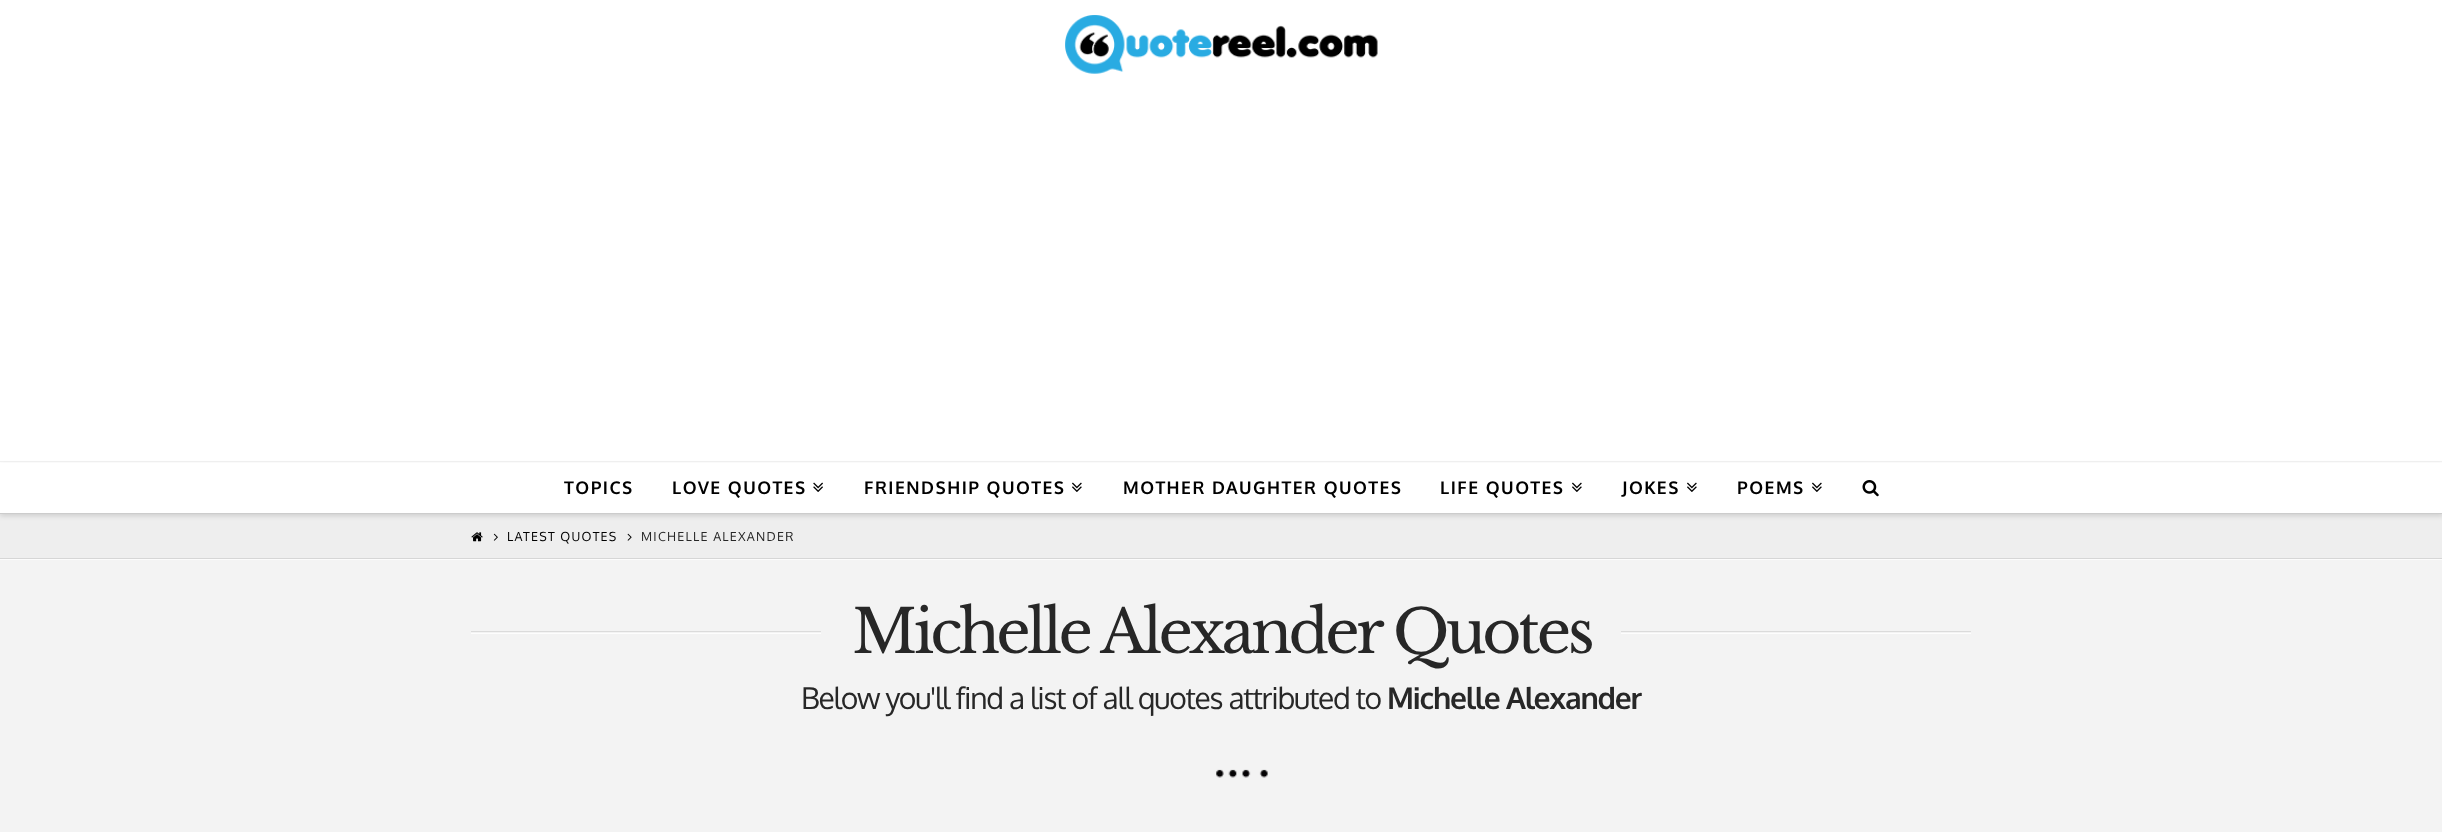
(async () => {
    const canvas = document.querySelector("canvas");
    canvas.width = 2442;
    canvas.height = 832;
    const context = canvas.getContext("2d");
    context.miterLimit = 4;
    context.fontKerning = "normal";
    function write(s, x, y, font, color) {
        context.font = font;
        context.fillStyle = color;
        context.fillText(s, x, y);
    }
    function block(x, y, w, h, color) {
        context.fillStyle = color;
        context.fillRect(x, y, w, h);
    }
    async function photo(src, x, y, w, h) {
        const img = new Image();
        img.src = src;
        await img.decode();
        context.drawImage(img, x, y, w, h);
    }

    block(0, 0, 2442, 832, "rgb(243, 243, 243)");
    block(0, 0, 2442, 463, "rgb(255, 255, 255)");
    block(0, 461, 2442, 1, "rgb(242, 242, 242)");
    await photo("media/1.png", 1065, 15, 313, 59);
    block(0, 514, 2442, 44, "rgb(238, 238, 238)");
    context.fillStyle = "rgba(0, 0, 0, 0.13)";
    context.filter = "blur(2.5px)";
    context.beginPath();
    context.rect(0, 465, 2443, 51);
    context.fill();
    context.filter = "none";
    block(0, 463, 2442, 50, "rgb(255, 255, 255)");
    block(0, 513, 2442, 1, "rgb(204, 204, 204)");
    context.letterSpacing = "1.5px";
    write("TOPICS", 564, 494, "bold 17.5px Oxygen", "rgb(0, 0, 0)");
    write("LOVE QUOTES", 672, 494, "bold 17.5px Oxygen", "rgb(0, 0, 0)");
    await photo("media/2.png", 813, 482, 10, 10);
    write("FRIENDSHIP QUOTES", 864, 494, "bold 17.5px Oxygen", "rgb(0, 0, 0)");
    await photo("media/3.png", 1072, 482, 10, 10);
    write("MOTHER DAUGHTER QUOTES", 1123, 494, "bold 17.5px Oxygen", "rgb(0, 0, 0)");
    write("LIFE QUOTES", 1440, 494, "bold 17.5px Oxygen", "rgb(0, 0, 0)");
    await photo("media/3.png", 1572, 482, 10, 10);
    write("JOKES", 1622, 494, "bold 17.5px Oxygen", "rgb(0, 0, 0)");
    await photo("media/3.png", 1687, 482, 10, 10);
    write("POEMS", 1737, 494, "bold 17.5px Oxygen", "rgb(0, 0, 0)");
    await photo("media/3.png", 1812, 482, 10, 10);
    await photo("media/4.png", 1862, 480, 17, 17);
    context.fillStyle = "rgb(252, 252, 252)";
    context.beginPath();
    context.moveTo(0, 559);
    context.lineTo(0, 560);
    context.lineTo(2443, 560);
    context.lineTo(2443, 515);
    context.lineTo(2442, 515);
    context.lineTo(2442, 559);
    context.closePath();
    context.fill();
    block(0, 558, 2442, 1, "rgb(214, 214, 214)");
    await photo("media/5.png", 471, 532, 12, 10);
    await photo("media/6.png", 493, 533, 5, 8);
    context.letterSpacing = "1.25px";
    write("LATEST QUOTES", 507, 541, "12.5px Oxygen", "rgb(0, 0, 0)");
    await photo("media/7.png", 627, 533, 5, 8);
    write("MICHELLE ALEXANDER", 641, 541, "12.5px Oxygen", "rgb(39, 39, 39)");
    block(471, 633, 350, 1, "rgb(253, 253, 253)");
    block(471, 631, 350, 1, "rgb(219, 219, 219)");
    context.letterSpacing = "-3.75px";
    write("Michelle Alexander Quotes", 852, 653, "60px Libre Baskerville", "rgb(39, 39, 39)");
    block(1621, 633, 350, 1, "rgb(253, 253, 253)");
    block(1621, 631, 350, 1, "rgb(219, 219, 219)");
    context.letterSpacing = "-1.25px";
    write("Below you'll find a list of all quotes attributed to", 801, 709, "30px Oxygen", "rgb(39, 39, 39)");
    write("Michelle Alexander", 1387, 709, "bold 30px Oxygen", "rgb(39, 39, 39)");
    await photo("media/8.png", 1216, 769, 52, 9);
})();
